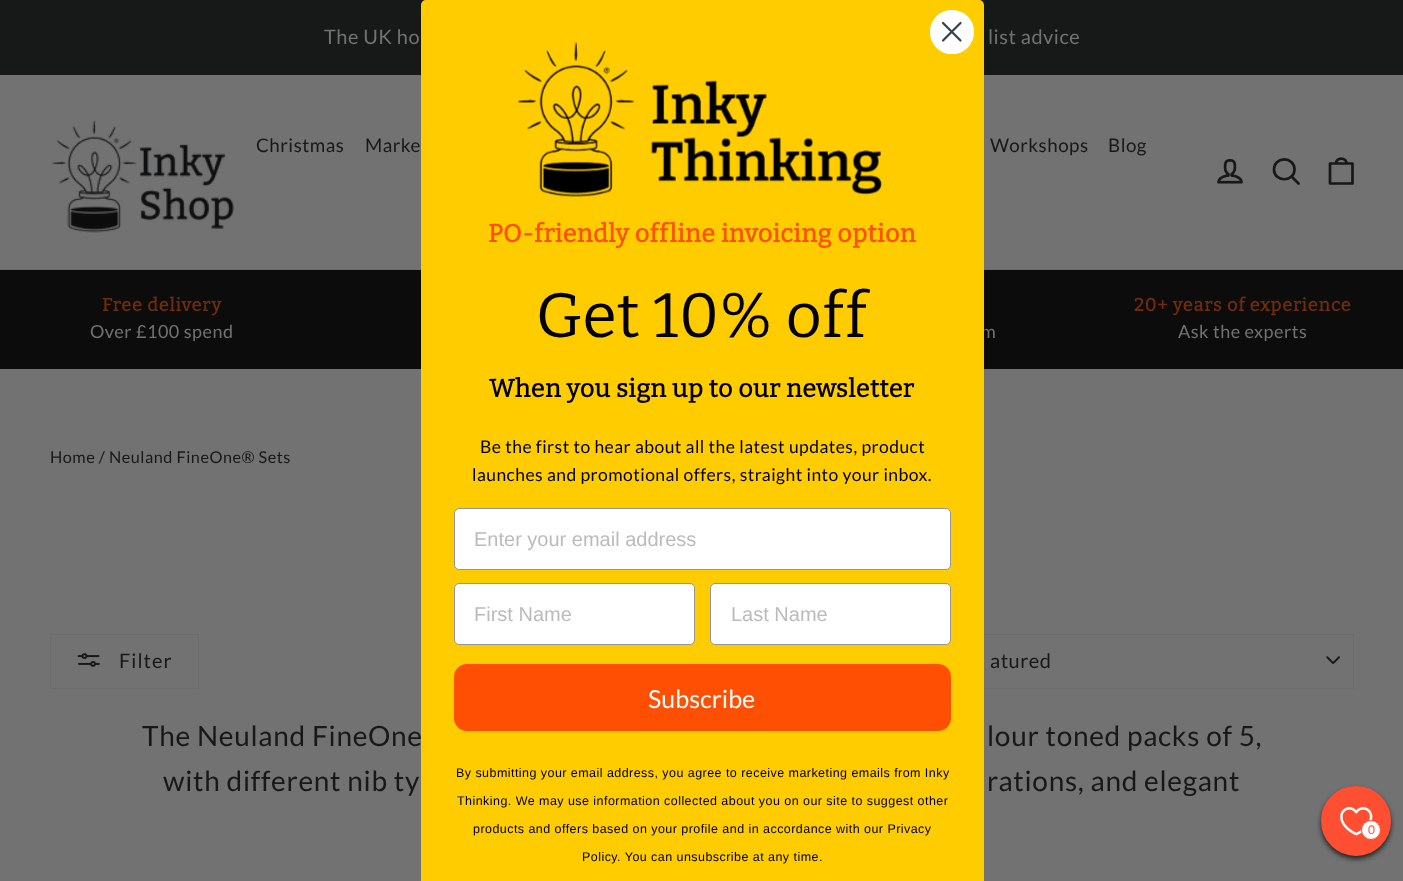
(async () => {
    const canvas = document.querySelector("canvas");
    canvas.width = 1403;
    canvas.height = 881;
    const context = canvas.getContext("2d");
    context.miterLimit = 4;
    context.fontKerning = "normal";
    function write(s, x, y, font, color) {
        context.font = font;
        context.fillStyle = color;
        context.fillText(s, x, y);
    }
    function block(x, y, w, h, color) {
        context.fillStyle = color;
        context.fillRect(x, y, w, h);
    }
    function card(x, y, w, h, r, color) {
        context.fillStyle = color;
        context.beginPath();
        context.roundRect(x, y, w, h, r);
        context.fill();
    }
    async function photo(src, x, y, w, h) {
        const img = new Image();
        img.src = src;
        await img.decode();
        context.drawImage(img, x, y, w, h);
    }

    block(0, 0, 1403, 881, "rgb(114, 114, 114)");
    block(0, 0, 1403, 75, "rgb(23, 24, 24)");
    context.letterSpacing = "0.5px";
    write("The UK ho", 324, 44, "20px Lato", "rgb(114, 114, 114)");
    write("list advice", 988, 44, "20px Lato", "rgb(114, 114, 114)");
    block(0, 269, 1403, 1, "rgb(108, 108, 109)");
    await photo("media/1.png", 52, 120, 182, 113);
    write("Christmas", 256, 152, "18.75px Lato", "rgb(23, 24, 24)");
    write("Marke", 365, 152, "18.75px Lato", "rgb(23, 24, 24)");
    write("Workshops", 990, 152, "18.75px Lato", "rgb(23, 24, 24)");
    write("Blog", 1108, 152, "18.75px Lato", "rgb(23, 24, 24)");
    await photo("media/2.png", 1217, 159, 26, 25);
    context.beginPath();
    context.moveTo(1294.5, 169.5);
    context.bezierCurveTo(1294.5, 182.5, 1274, 182.5, 1274, 169.5);
    context.bezierCurveTo(1274, 156, 1294.5, 156, 1294.5, 169.5);
    context.closePath();
    context.moveTo(1298.5, 183.5);
    context.lineTo(1291.5, 176.5);
    context.strokeStyle = "rgb(23, 24, 24)";
    context.lineWidth = 2.7;
    context.lineCap = "round";
    context.lineJoin = "round";
    context.stroke();
    context.beginPath();
    context.moveTo(1330, 163.5);
    context.lineTo(1352.5, 163.5);
    context.lineTo(1352.5, 183.5);
    context.lineTo(1330, 183.5);
    context.closePath();
    context.moveTo(1336, 163.5);
    context.bezierCurveTo(1336, 157, 1346.5, 157, 1346.5, 163.5);
    context.stroke();
    block(0, 270, 1403, 99, "rgb(12, 12, 12)");
    context.letterSpacing = "0.9px";
    write("Free delivery", 102, 311, "bold 18px Bitter", "rgb(114, 44, 12)");
    context.letterSpacing = "0.5px";
    write("Over £100 spend", 90, 338, "18px Lato", "rgb(114, 114, 114)");
    write("m", 981, 338, "18px Lato", "rgb(114, 114, 114)");
    context.letterSpacing = "0.9px";
    write("20+ years of experience", 1134, 311, "bold 18px Bitter", "rgb(114, 44, 12)");
    context.letterSpacing = "0.5px";
    write("Ask the experts", 1178, 338, "18px Lato", "rgb(114, 114, 114)");
    write("Home / Neuland FineOne® Sets", 50, 463, "16.25px Lato", "rgb(23, 24, 24)");
    context.strokeStyle = "rgb(108, 108, 109)";
    context.lineWidth = 1;
    context.lineJoin = "miter";
    context.strokeRect(50.5, 634.5, 148, 54);
    await photo("media/3.png", 77, 653, 23, 14);
    context.letterSpacing = "1px";
    write("Filter", 119, 668, "20px Lato", "rgb(23, 24, 24)");
    await photo("media/4.png", 1326, 656, 14, 8);
    context.strokeRect(954.5, 634.5, 399, 54);
    context.letterSpacing = "0.5px";
    write("atured", 990, 668, "20px Lato", "rgb(23, 24, 24)");
    context.letterSpacing = "0.7px";
    write("The Neuland FineOne", 142, 746, "28px Lato", "rgb(23, 24, 24)");
    write("lour toned packs of 5,", 987, 746, "28px Lato", "rgb(23, 24, 24)");
    write("with different nib ty", 163, 791, "28px Lato", "rgb(23, 24, 24)");
    write("rations, and elegant", 987, 791, "28px Lato", "rgb(23, 24, 24)");
    context.fillStyle = "rgb(255, 204, 0)";
    context.beginPath();
    context.roundRect(421, 0, 563, 881, [5, 5, 0, 0]);
    context.fill();
    context.fillStyle = "rgb(255, 255, 255)";
    context.beginPath();
    context.arc(952, 32, 21, 0, Math.PI * 2);
    context.fill();
    context.save();
    context.beginPath();
    context.rect(930, 10, 44, 44);
    context.clip();
    context.beginPath();
    context.arc(952, 32, 21, 0, Math.PI * 2);
    context.strokeStyle = "rgb(255, 255, 255)";
    context.lineWidth = 2.2;
    context.stroke();
    context.restore();
    context.beginPath();
    context.moveTo(943, 23);
    context.lineTo(960.5, 40.5);
    context.moveTo(943, 40.5);
    context.lineTo(960.5, 23);
    context.closePath();
    context.strokeStyle = "rgb(55, 63, 71)";
    context.lineWidth = 2.2;
    context.lineJoin = "round";
    context.stroke();
    await photo("media/5.png", 517, 42, 365, 155);
    context.letterSpacing = "0.45px";
    write("PO-friendly offline invoicing option", 488, 242, "bold 25px Bitter", "rgb(255, 79, 0)");
    write("Get 10% off", 536, 337, "100 62.5px Bitter", "rgb(0, 0, 0)");
    write("When you sign up to our newsletter", 489, 397, "bold 25px Bitter", "rgb(0, 0, 0)");
    write("Be the first to hear about all the latest updates, product", 480, 453, "17.5px Lato", "rgb(0, 0, 0)");
    write("launches and promotional offers, straight into your inbox.", 472, 481, "17.5px Lato", "rgb(0, 0, 0)");
    context.fillStyle = "rgb(255, 255, 255)";
    context.beginPath();
    context.roundRect(454.5, 508.5, 496, 61, 4.5);
    context.fill();
    context.strokeStyle = "rgb(148, 149, 150)";
    context.lineWidth = 1;
    context.lineJoin = "miter";
    context.stroke();
    context.letterSpacing = "0px";
    write("Enter your email address", 474, 546, "20px Liberation Sans", "rgb(187, 187, 187)");
    context.fillStyle = "rgb(255, 255, 255)";
    context.beginPath();
    context.roundRect(454.5, 583.5, 240, 61, 4.5);
    context.fill();
    context.stroke();
    write("First Name", 474, 621, "20px Liberation Sans", "rgb(187, 187, 187)");
    context.fillStyle = "rgb(255, 255, 255)";
    context.beginPath();
    context.roundRect(710.5, 583.5, 240, 61, 4.5);
    context.fill();
    context.stroke();
    write("Last Name", 731, 621, "20px Liberation Sans", "rgb(187, 187, 187)");
    card(454, 664, 497, 67, 13, "rgb(255, 79, 2)");
    write("Subscribe", 648, 708, "25px Lato", "rgb(255, 255, 255)");
    context.letterSpacing = "0.45px";
    write("By submitting your email address, you agree to receive marketing emails from Inky", 456, 777, "12.5px Liberation Sans", "rgb(0, 0, 0)");
    write("Thinking. We may use information collected about you on our site to suggest other", 457, 805, "12.5px Liberation Sans", "rgb(0, 0, 0)");
    write("products and offers based on your profile and in accordance with our Privacy", 473, 833, "12.5px Liberation Sans", "rgb(0, 0, 0)");
    write("Policy. You can unsubscribe at any time.", 582, 861, "12.5px Liberation Sans", "rgb(0, 0, 0)");
    context.fillStyle = "rgba(0, 0, 0, 0.7)";
    context.filter = "blur(2.5px)";
    context.beginPath();
    context.roundRect(1321, 789, 70, 70, 35);
    context.fill();
    context.filter = "none";
    context.fillStyle = "rgb(255, 79, 51)";
    context.beginPath();
    context.arc(1356, 821, 33.5, 0, Math.PI * 2);
    context.fill();
    context.strokeStyle = "rgb(255, 79, 51)";
    context.lineWidth = 3;
    context.stroke();
    await photo("media/6.png", 1340, 807, 33, 29);
    context.fillStyle = "rgb(255, 255, 255)";
    context.beginPath();
    context.arc(1371, 830, 9.5, 0, Math.PI * 2);
    context.fill();
    context.lineWidth = 1;
    context.stroke();
    context.letterSpacing = "0.5px";
    write("0", 1368, 834, "12px Lato", "rgb(255, 79, 51)");
})();
